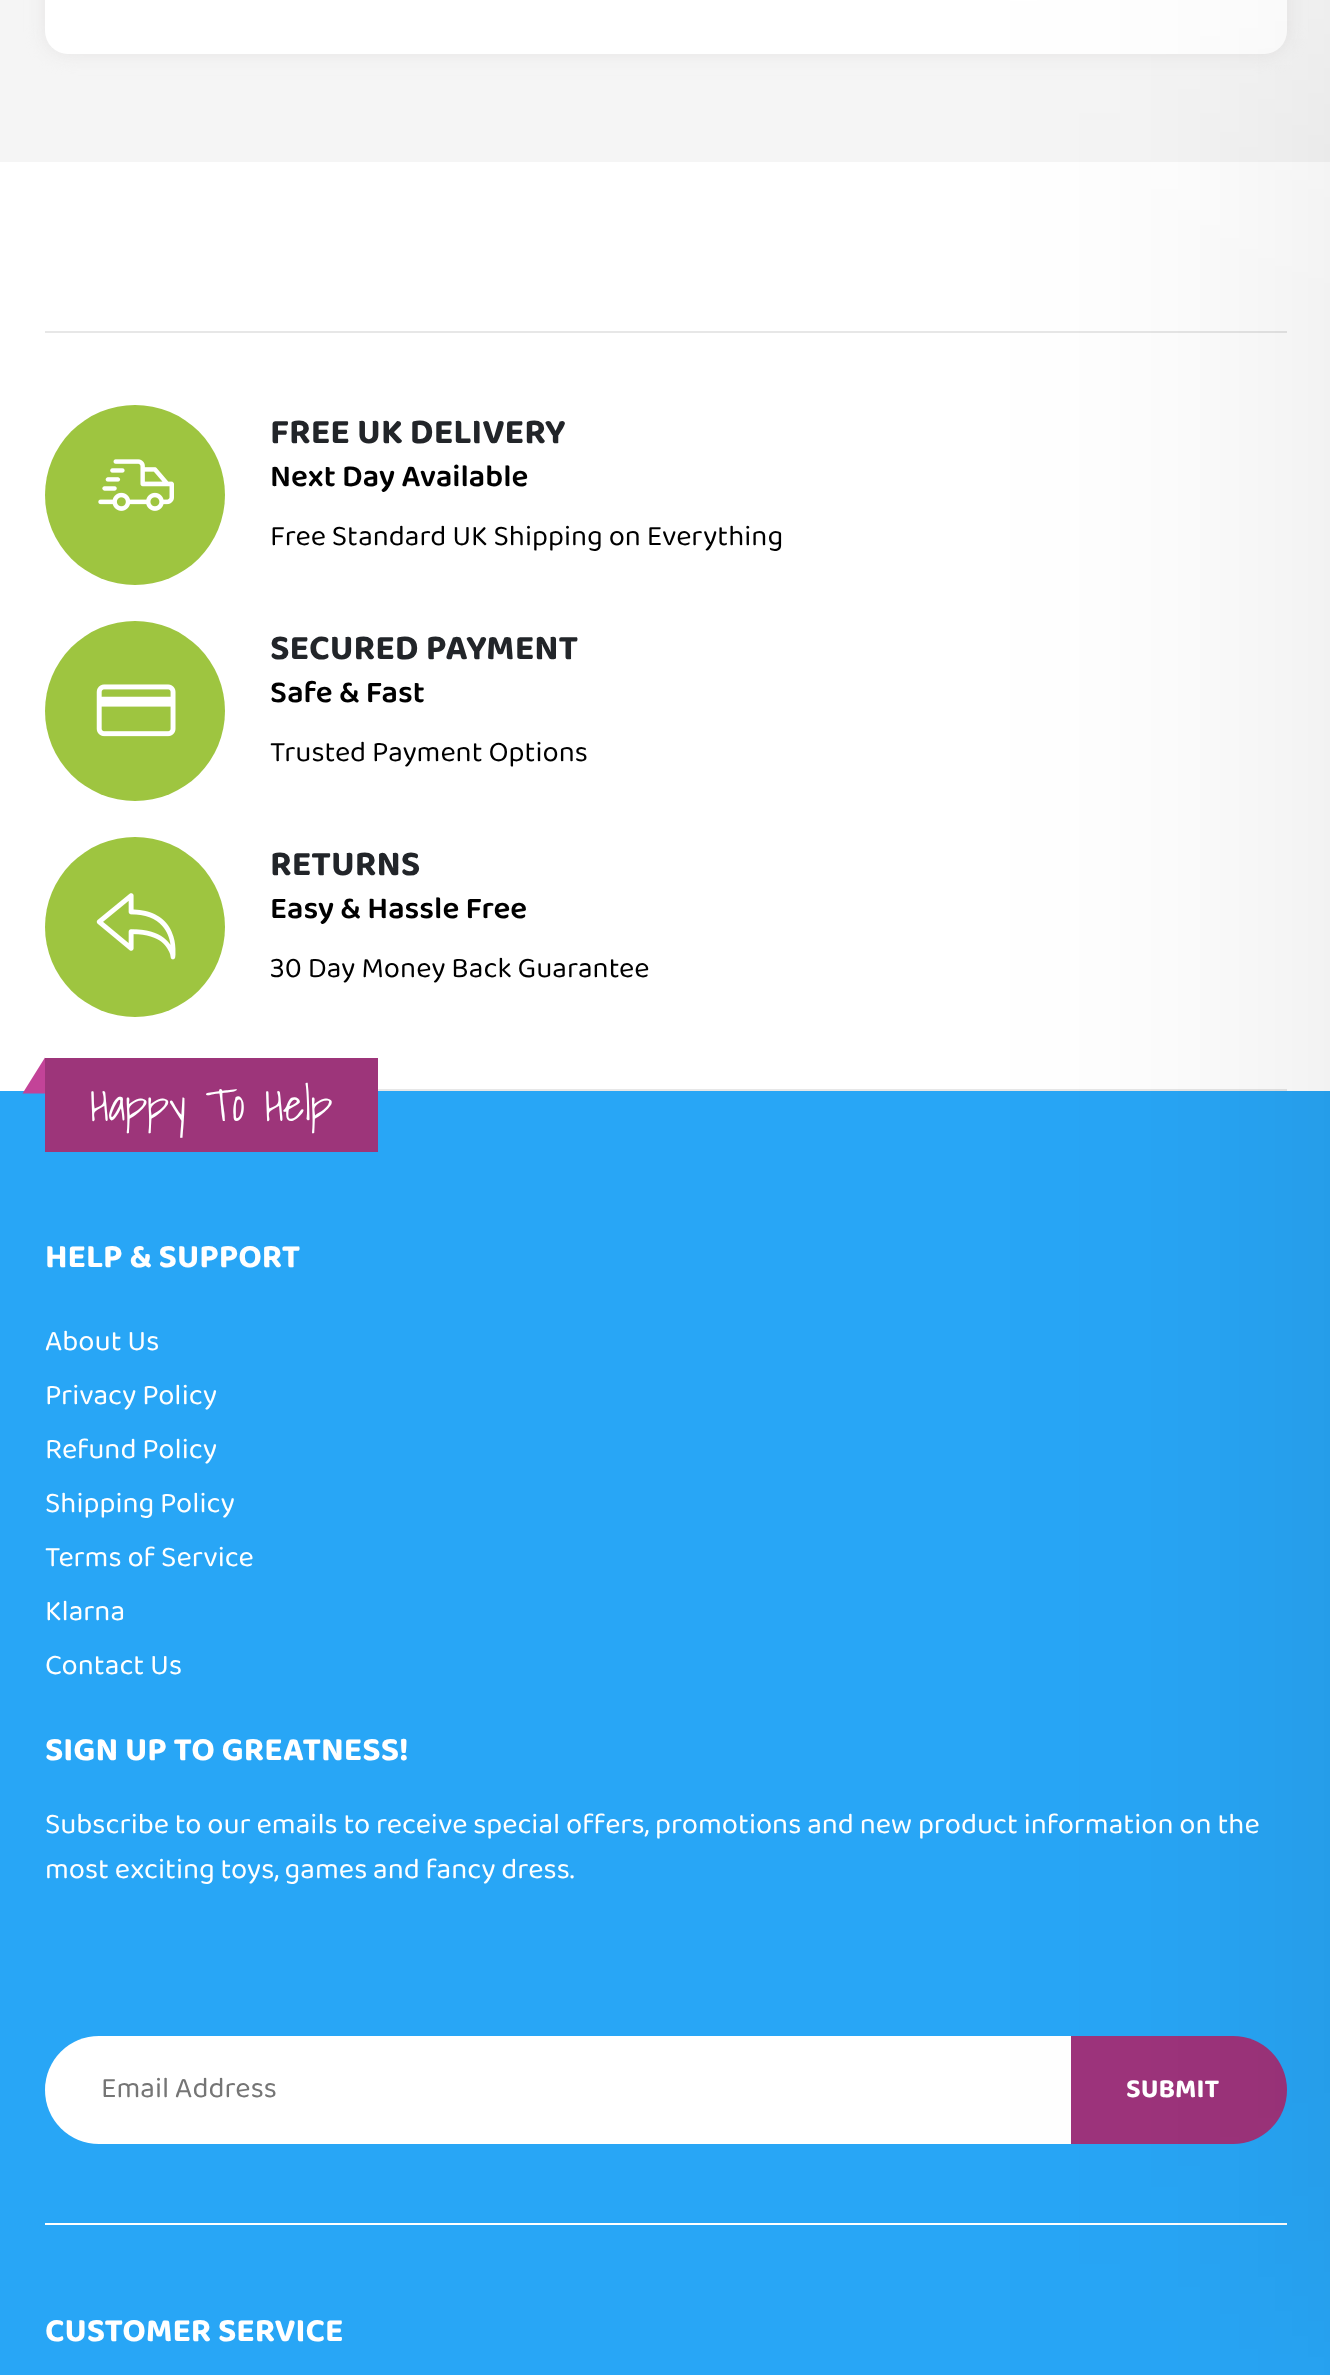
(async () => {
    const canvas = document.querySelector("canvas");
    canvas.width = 1330;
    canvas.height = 2375;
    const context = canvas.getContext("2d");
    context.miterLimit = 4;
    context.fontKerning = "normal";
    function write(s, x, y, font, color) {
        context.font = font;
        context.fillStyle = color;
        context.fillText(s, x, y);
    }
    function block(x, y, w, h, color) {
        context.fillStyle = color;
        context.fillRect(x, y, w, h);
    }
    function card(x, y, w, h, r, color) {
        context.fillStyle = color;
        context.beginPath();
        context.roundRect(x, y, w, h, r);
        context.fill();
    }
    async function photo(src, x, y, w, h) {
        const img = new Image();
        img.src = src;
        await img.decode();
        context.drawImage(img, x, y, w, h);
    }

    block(0, 0, 1330, 2375, "rgb(255, 255, 255)");
    block(0, 0, 1330, 162, "rgb(245, 245, 245)");
    context.fillStyle = "rgb(230, 229, 229)";
    context.filter = "blur(9px)";
    context.beginPath();
    context.roundRect(45, -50, 1242, 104, 23);
    context.fill();
    context.filter = "none";
    card(45, -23, 1242, 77, 23, "rgb(255, 255, 255)");
    block(45, 331, 1242, 2, "rgb(231, 231, 231)");
    block(378, 1089, 909, 2, "rgb(231, 231, 231)");
    block(0, 1091, 1330, 1284, "rgb(40, 166, 246)");
    context.fillStyle = "rgb(255, 255, 255)";
    context.beginPath();
    context.roundRect(45, 2036, 1026, 108, [54, 0, 0, 54]);
    context.fill();
    context.fillStyle = "rgb(158, 52, 124)";
    context.beginPath();
    context.roundRect(1071, 2036, 216, 108, [0, 54, 54, 0]);
    context.fill();
    block(45, 2223, 1242, 2, "rgb(255, 255, 255)");
    context.fillStyle = "rgba(0, 0, 0, 0.1)";
    context.filter = "blur(169px)";
    context.beginPath();
    context.rect(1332, 0, 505, 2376);
    context.fill();
    context.filter = "none";
    context.fillStyle = "rgb(158, 197, 64)";
    context.beginPath();
    context.arc(135, 495, 90, 0, Math.PI * 2);
    context.fill();
    await photo("media/1.png", 98, 459, 76, 52);
    write("FREE UK DELIVERY", 270, 443, "bold 36px 'Baloo 2'", "rgb(34, 37, 41)");
    write("Next Day Available", 270, 486, "600 31.5px 'Baloo 2'", "rgb(0, 0, 0)");
    write("Free Standard UK Shipping on Everything", 270, 545, "29.25px 'Baloo 2'", "rgb(0, 0, 0)");
    context.fillStyle = "rgb(158, 197, 64)";
    context.beginPath();
    context.arc(135, 711, 90, 0, Math.PI * 2);
    context.fill();
    await photo("media/2.png", 96, 684, 80, 53);
    write("SECURED PAYMENT", 270, 659, "bold 36px 'Baloo 2'", "rgb(34, 37, 41)");
    write("Safe & Fast", 270, 702, "600 31.5px 'Baloo 2'", "rgb(0, 0, 0)");
    write("Trusted Payment Options", 270, 761, "29.25px 'Baloo 2'", "rgb(0, 0, 0)");
    context.fillStyle = "rgb(158, 197, 64)";
    context.beginPath();
    context.arc(135, 927, 90, 0, Math.PI * 2);
    context.fill();
    await photo("media/3.png", 96, 893, 80, 67);
    write("RETURNS", 270, 875, "bold 36px 'Baloo 2'", "rgb(34, 37, 41)");
    write("Easy & Hassle Free", 270, 918, "600 31.5px 'Baloo 2'", "rgb(0, 0, 0)");
    write("30 Day Money Back Guarantee", 270, 977, "29.25px 'Baloo 2'", "rgb(0, 0, 0)");
    block(45, 1058, 333, 94, "rgb(157, 53, 122)");
    context.fillStyle = "rgb(195, 67, 152)";
    context.beginPath();
    context.moveTo(45, 1057.5);
    context.lineTo(45, 1093.5);
    context.lineTo(22.5, 1093.5);
    context.closePath();
    context.fill();
    write("Happy To Help", 90, 1121, "300 45px Shadows Into Light", "rgb(255, 255, 255)");
    write("HELP & SUPPORT", 45, 1267, "bold 33.75px 'Baloo 2'", "rgb(255, 255, 255)");
    write("About Us", 45, 1350, "29.25px 'Baloo 2'", "rgb(255, 255, 255)");
    write("Privacy Policy", 45, 1404, "29.25px 'Baloo 2'", "rgb(255, 255, 255)");
    write("Refund Policy", 45, 1458, "29.25px 'Baloo 2'", "rgb(255, 255, 255)");
    write("Shipping Policy", 45, 1512, "29.25px 'Baloo 2'", "rgb(255, 255, 255)");
    write("Terms of Service", 45, 1566, "29.25px 'Baloo 2'", "rgb(255, 255, 255)");
    write("Klarna", 45, 1620, "29.25px 'Baloo 2'", "rgb(255, 255, 255)");
    write("Contact Us", 45, 1674, "29.25px 'Baloo 2'", "rgb(255, 255, 255)");
    write("SIGN UP TO GREATNESS!", 45, 1760, "bold 33.75px 'Baloo 2'", "rgb(255, 255, 255)");
    write("Subscribe to our emails to receive special offers, promotions and new product information on the", 45, 1833, "29.25px 'Baloo 2'", "rgb(255, 255, 255)");
    write("most exciting toys, games and fancy dress.", 45, 1878, "29.25px 'Baloo 2'", "rgb(255, 255, 255)");
    write("Email Address", 101, 2097, "29.25px 'Baloo 2'", "rgb(117, 117, 117)");
    write("SUBMIT", 1126, 2097, "bold 27px 'Baloo 2'", "rgb(255, 255, 255)");
    write("CUSTOMER SERVICE", 45, 2341, "bold 33.75px 'Baloo 2'", "rgb(255, 255, 255)");
})();
